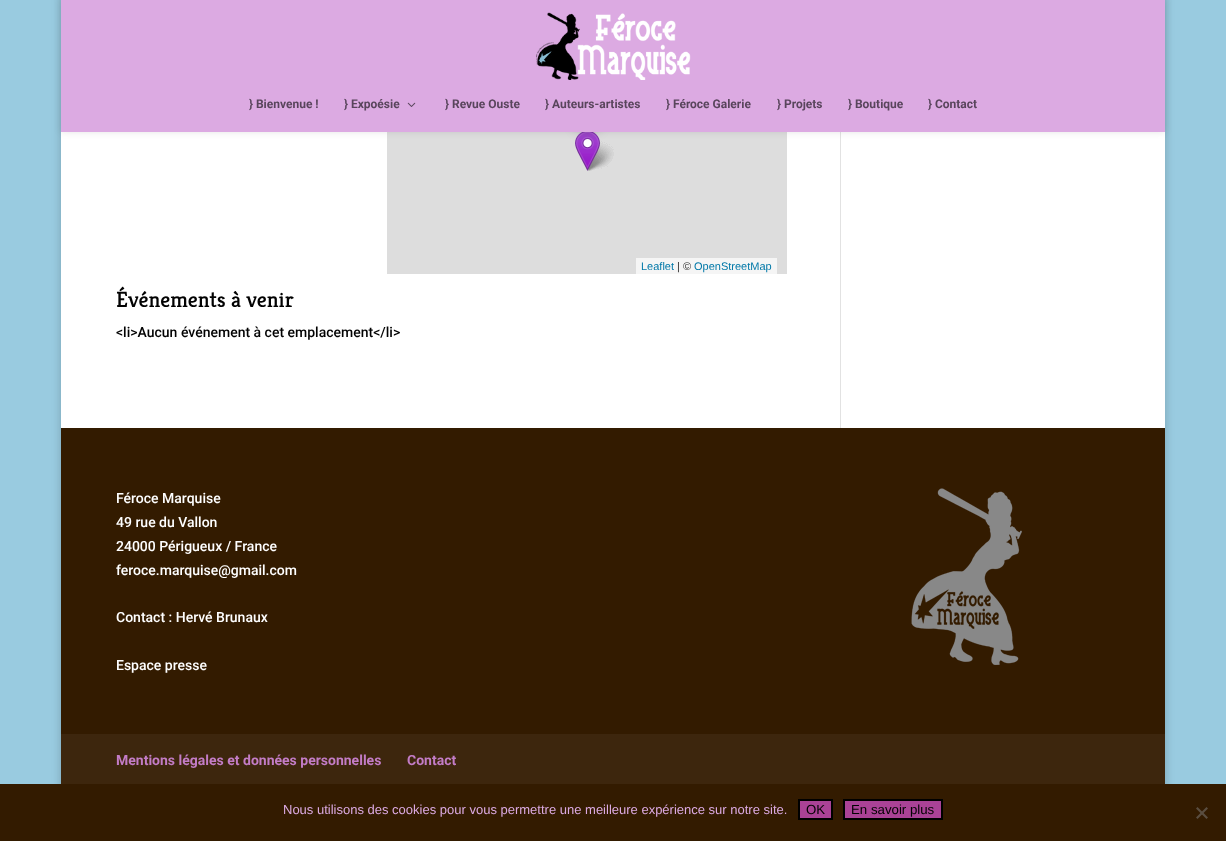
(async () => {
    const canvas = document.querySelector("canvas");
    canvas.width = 1226;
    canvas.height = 841;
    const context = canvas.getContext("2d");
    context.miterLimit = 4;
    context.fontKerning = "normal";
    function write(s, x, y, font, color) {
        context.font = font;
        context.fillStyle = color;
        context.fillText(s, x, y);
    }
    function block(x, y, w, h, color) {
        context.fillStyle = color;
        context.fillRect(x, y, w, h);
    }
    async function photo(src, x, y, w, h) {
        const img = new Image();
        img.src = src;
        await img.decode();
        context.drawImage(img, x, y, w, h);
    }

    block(0, 0, 1226, 841, "rgb(153, 203, 224)");
    context.fillStyle = "rgba(0, 0, 0, 0.2)";
    context.filter = "blur(5px)";
    context.beginPath();
    context.rect(61, -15, 1104, 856);
    context.fill();
    context.filter = "none";
    block(61, 132, 1104, 296, "rgb(255, 255, 255)");
    block(387, 132, 400, 142, "rgb(221, 221, 221)");
    await photo("media/4.png", 585, 141, 29, 30);
    await photo("media/3.png", 575, 132, 25, 39);
    block(840, 132, 1, 296, "rgb(226, 226, 226)");
    context.fillStyle = "rgba(0, 0, 0, 0.1)";
    context.filter = "blur(3.5px)";
    context.beginPath();
    context.rect(61, 0, 1104, 132);
    context.fill();
    context.filter = "none";
    context.fillStyle = "rgba(0, 0, 0, 0.4)";
    context.filter = "blur(7px)";
    context.beginPath();
    context.rect(579, 111, 17, 17);
    context.fill();
    context.filter = "none";
    block(61, 0, 1104, 132, "rgb(220, 170, 226)");
    await photo("media/1.png", 536, 12, 155, 68);
    write("} Bienvenue !", 249, 108, "bold 12px Roboto", "rgb(89, 69, 92)");
    write("} Expoésie", 344, 108, "bold 12px Roboto", "rgb(89, 69, 92)");
    await photo("media/2.png", 407, 102, 9, 5);
    write("} Revue Ouste", 445, 108, "bold 12px Roboto", "rgb(89, 69, 92)");
    write("} Auteurs-artistes", 545, 108, "bold 12px Roboto", "rgb(89, 69, 92)");
    write("} Féroce Galerie", 666, 108, "bold 12px Roboto", "rgb(89, 69, 92)");
    write("} Projets", 777, 108, "bold 12px Roboto", "rgb(89, 69, 92)");
    write("} Boutique", 848, 108, "bold 12px Roboto", "rgb(89, 69, 92)");
    write("} Contact", 928, 108, "bold 12px Roboto", "rgb(89, 69, 92)");
    block(636, 258, 141, 16, "rgb(245, 245, 245)");
    write("Leaflet", 641, 270, "11px Liberation Sans", "rgb(0, 120, 168)");
    write("| ©", 677, 270, "11px Liberation Sans", "rgb(51, 51, 51)");
    write("OpenStreetMap", 694, 270, "11px Liberation Sans", "rgb(0, 120, 168)");
    write("Événements à venir", 116, 307, "300 22px Kreon", "rgb(2, 2, 2)");
    write("<li>Aucun événement à cet emplacement<\/li>", 116, 337, "500 14px Roboto", "rgb(2, 2, 2)");
    block(61, 428, 1104, 306, "rgb(51, 27, 0)");
    write("Féroce Marquise", 116, 503, "500 14px Roboto", "rgb(255, 255, 255)");
    write("49 rue du Vallon", 116, 527, "500 14px Roboto", "rgb(255, 255, 255)");
    write("24000 Périgueux / France", 116, 551, "500 14px Roboto", "rgb(255, 255, 255)");
    write("feroce.marquise@gmail.com", 116, 575, "500 14px Roboto", "rgb(255, 255, 255)");
    write("Contact : Hervé Brunaux", 116, 622, "500 14px Roboto", "rgb(255, 255, 255)");
    write("Espace presse", 116, 670, "500 14px Roboto", "rgb(255, 255, 255)");
    await photo("media/5.png", 911, 488, 111, 177);
    block(61, 734, 1104, 50, "rgb(61, 38, 13)");
    write("Mentions légales et données personnelles", 116, 765, "bold 14px Roboto", "rgb(195, 124, 198)");
    write("Contact", 407, 765, "bold 14px Roboto", "rgb(195, 124, 198)");
    block(0, 784, 1226, 57, "rgb(51, 27, 0)");
    write("Nous utilisons des cookies pour vous permettre une meilleure expérience sur notre site.", 283, 814, "13px Liberation Sans", "rgb(220, 170, 226)");
    context.fillStyle = "rgb(170, 66, 150)";
    context.beginPath();
    context.rect(799, 800, 33, 19);
    context.fill();
    context.strokeStyle = "rgb(0, 0, 0)";
    context.lineWidth = 2;
    context.stroke();
    write("OK", 806, 814, "13.25px Liberation Sans", "rgb(2, 2, 2)");
    context.fillStyle = "rgb(170, 66, 150)";
    context.beginPath();
    context.rect(844, 800, 98, 19);
    context.fill();
    context.stroke();
    write("En savoir plus", 851, 814, "13.25px Liberation Sans", "rgb(2, 2, 2)");
    context.fillStyle = "rgb(90, 78, 64)";
    context.beginPath();
    context.moveTo(1206.5, 807);
    context.lineTo(1208, 808.5);
    context.lineTo(1197.5, 819);
    context.lineTo(1196, 817.5);
    context.closePath();
    context.fill();
    context.beginPath();
    context.moveTo(1196, 808.5);
    context.lineTo(1197.5, 807);
    context.lineTo(1208, 817.5);
    context.lineTo(1206.5, 819);
    context.closePath();
    context.fill();
})();
